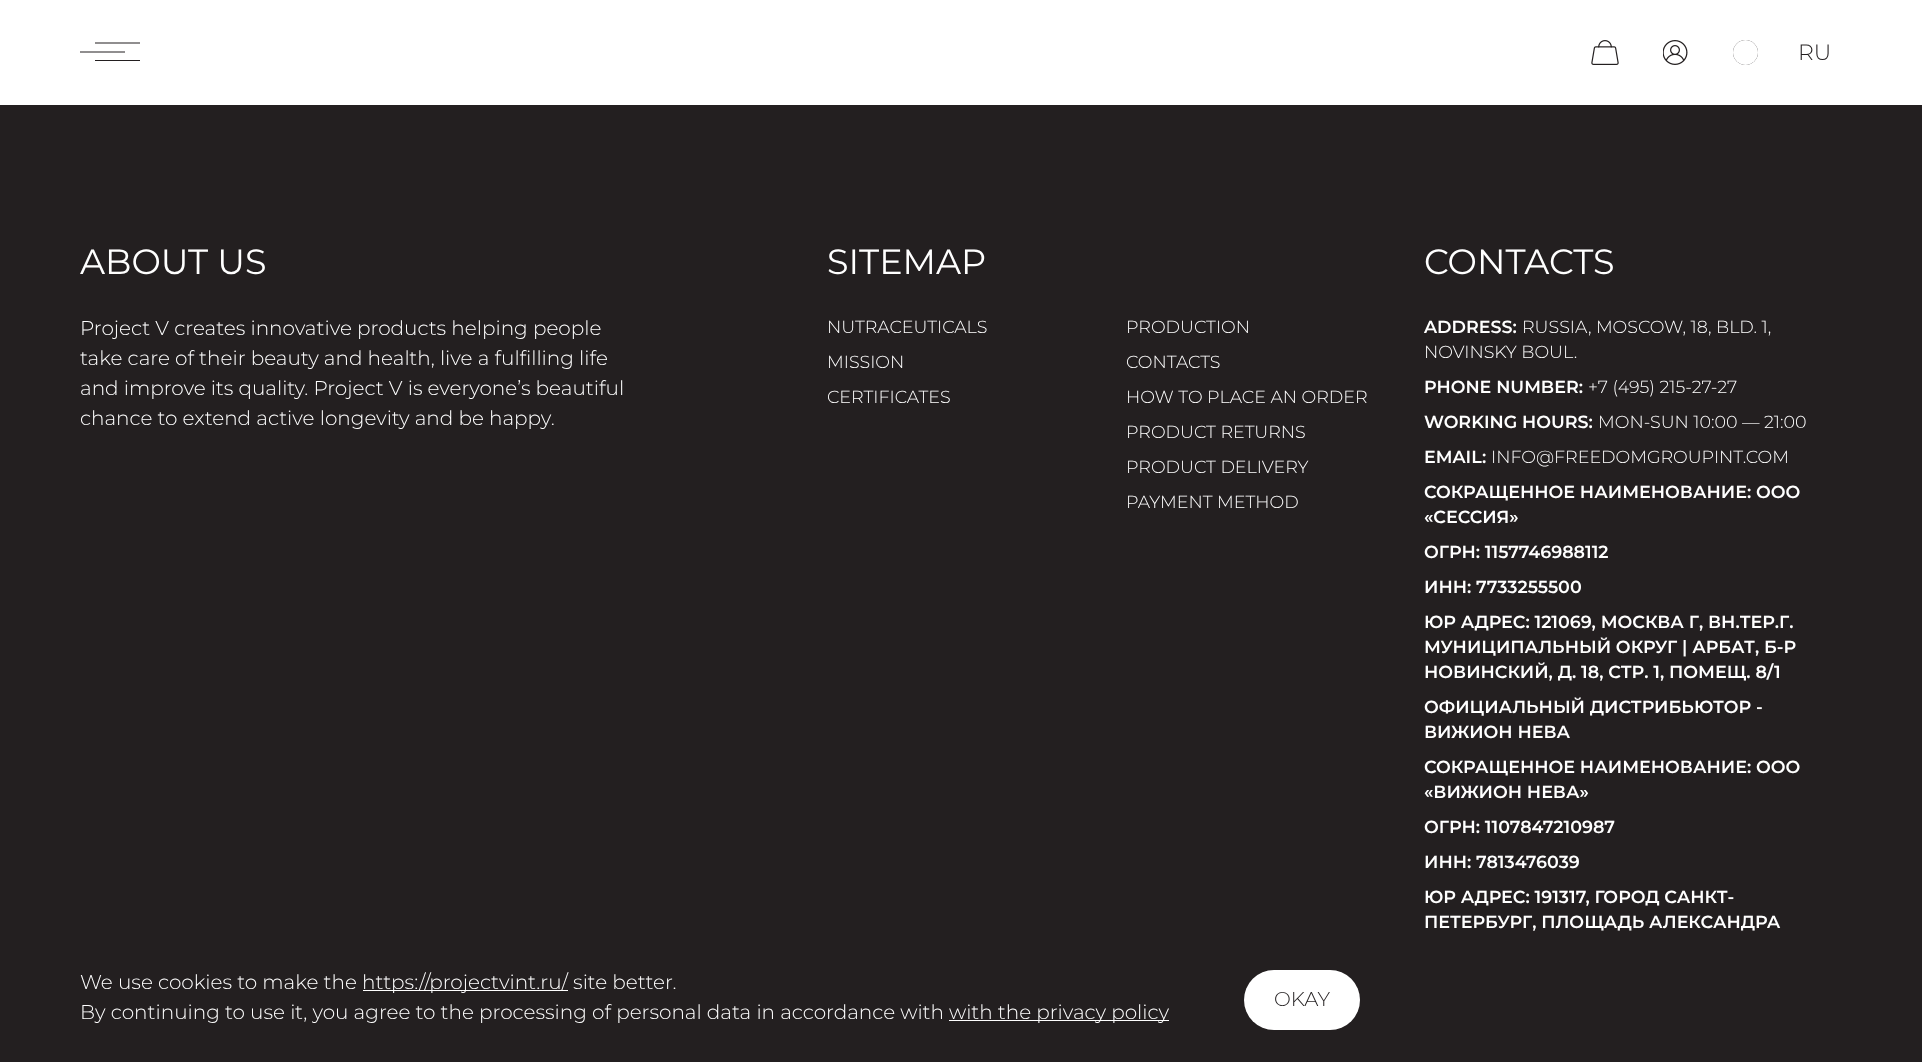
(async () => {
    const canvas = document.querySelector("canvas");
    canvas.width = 1922;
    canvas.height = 1062;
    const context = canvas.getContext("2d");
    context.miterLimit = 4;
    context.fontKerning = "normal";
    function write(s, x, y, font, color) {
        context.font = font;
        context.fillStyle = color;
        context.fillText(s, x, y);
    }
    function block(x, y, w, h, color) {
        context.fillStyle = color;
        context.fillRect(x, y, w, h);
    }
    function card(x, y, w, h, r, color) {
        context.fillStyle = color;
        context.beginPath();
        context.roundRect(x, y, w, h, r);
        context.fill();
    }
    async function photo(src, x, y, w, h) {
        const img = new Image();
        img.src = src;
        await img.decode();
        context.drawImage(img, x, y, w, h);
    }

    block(0, 0, 1922, 1062, "rgb(35, 31, 32)");
    block(0, 0, 1922, 105, "rgb(255, 255, 255)");
    context.beginPath();
    context.moveTo(95, 43);
    context.lineTo(140, 43);
    context.moveTo(80, 52);
    context.lineTo(125, 52);
    context.strokeStyle = "rgb(35, 31, 32)";
    context.lineWidth = 1.2;
    context.stroke();
    block(95, 60, 45, 1, "rgb(35, 31, 32)");
    await photo("media/1.png", 1591, 40, 28, 25);
    await photo("media/2.png", 1663, 40, 25, 25);
    context.filter = "blur(0.5px)";
    context.beginPath();
    context.roundRect(1733, 40, 25, 25, 12.5);
    context.fill();
    context.filter = "none";
    context.fillStyle = "rgb(255, 255, 255)";
    context.beginPath();
    context.arc(1745.5, 52.5, 12.5, 0, Math.PI * 2);
    context.fill();
    write("RU", 1798, 60, "300 22px Montserrat", "rgb(35, 31, 32)");
    write("ABOUT US", 80, 274, "35px Montserrat", "rgb(255, 255, 255)");
    write("Project V creates innovative products helping people", 80, 335, "300 20px Montserrat", "rgb(255, 255, 255)");
    write("take care of their beauty and health, live a fulfilling life", 80, 365, "300 20px Montserrat", "rgb(255, 255, 255)");
    write("and improve its quality. Project V is everyone’s beautiful", 80, 395, "300 20px Montserrat", "rgb(255, 255, 255)");
    write("chance to extend active longevity and be happy.", 80, 425, "300 20px Montserrat", "rgb(255, 255, 255)");
    write("SITEMAP", 827, 274, "35px Montserrat", "rgb(255, 255, 255)");
    write("NUTRACEUTICALS", 827, 333, "300 17.5px Montserrat", "rgb(255, 255, 255)");
    write("MISSION", 827, 368, "300 17.5px Montserrat", "rgb(255, 255, 255)");
    write("CERTIFICATES", 827, 403, "300 17.5px Montserrat", "rgb(255, 255, 255)");
    write("PRODUCTION", 1126, 333, "300 17.5px Montserrat", "rgb(255, 255, 255)");
    write("CONTACTS", 1126, 368, "300 17.5px Montserrat", "rgb(255, 255, 255)");
    write("HOW TO PLACE AN ORDER", 1126, 403, "300 17.5px Montserrat", "rgb(255, 255, 255)");
    write("PRODUCT RETURNS", 1126, 438, "300 17.5px Montserrat", "rgb(255, 255, 255)");
    write("PRODUCT DELIVERY", 1126, 473, "300 17.5px Montserrat", "rgb(255, 255, 255)");
    write("PAYMENT METHOD", 1126, 508, "300 17.5px Montserrat", "rgb(255, 255, 255)");
    write("CONTACTS", 1424, 274, "35px Montserrat", "rgb(255, 255, 255)");
    write("ADDRESS:", 1424, 333, "600 17.5px Montserrat", "rgb(255, 255, 255)");
    write("RUSSIA, MOSCOW, 18, BLD. 1,", 1522, 333, "300 17.5px Montserrat", "rgb(255, 255, 255)");
    write("NOVINSKY BOUL.", 1424, 358, "300 17.5px Montserrat", "rgb(255, 255, 255)");
    write("PHONE NUMBER:", 1424, 393, "600 17.5px Montserrat", "rgb(255, 255, 255)");
    write("+7 (495) 215-27-27", 1588, 393, "300 17.5px Montserrat", "rgb(255, 255, 255)");
    write("WORKING HOURS:", 1424, 428, "600 17.5px Montserrat", "rgb(255, 255, 255)");
    write("MON-SUN 10:00 — 21:00", 1598, 428, "300 17.5px Montserrat", "rgb(255, 255, 255)");
    write("EMAIL:", 1424, 463, "600 17.5px Montserrat", "rgb(255, 255, 255)");
    write("INFO@FREEDOMGROUPINT.COM", 1491, 463, "300 17.5px Montserrat", "rgb(255, 255, 255)");
    write("СОКРАЩЕННОЕ НАИМЕНОВАНИЕ: ООО", 1424, 498, "600 17.5px Montserrat", "rgb(255, 255, 255)");
    write("«СЕССИЯ»", 1424, 523, "600 17.5px Montserrat", "rgb(255, 255, 255)");
    write("ОГРН: 1157746988112", 1424, 558, "600 17.5px Montserrat", "rgb(255, 255, 255)");
    write("ИНН: 7733255500", 1424, 593, "600 17.5px Montserrat", "rgb(255, 255, 255)");
    write("ЮР АДРЕС: 121069, МОСКВА Г, ВН.ТЕР.Г.", 1424, 628, "600 17.5px Montserrat", "rgb(255, 255, 255)");
    write("МУНИЦИПАЛЬНЫЙ ОКРУГ | АРБАТ, Б-Р", 1424, 653, "600 17.5px Montserrat", "rgb(255, 255, 255)");
    write("НОВИНСКИЙ, Д. 18, СТР. 1, ПОМЕЩ. 8/1", 1424, 678, "600 17.5px Montserrat", "rgb(255, 255, 255)");
    write("ОФИЦИАЛЬНЫЙ ДИСТРИБЬЮТОР -", 1424, 713, "600 17.5px Montserrat", "rgb(255, 255, 255)");
    write("ВИЖИОН НЕВА", 1424, 738, "600 17.5px Montserrat", "rgb(255, 255, 255)");
    write("СОКРАЩЕННОЕ НАИМЕНОВАНИЕ: ООО", 1424, 773, "600 17.5px Montserrat", "rgb(255, 255, 255)");
    write("«ВИЖИОН НЕВА»", 1424, 798, "600 17.5px Montserrat", "rgb(255, 255, 255)");
    write("ОГРН: 1107847210987", 1424, 833, "600 17.5px Montserrat", "rgb(255, 255, 255)");
    write("ИНН: 7813476039", 1424, 868, "600 17.5px Montserrat", "rgb(255, 255, 255)");
    write("ЮР АДРЕС: 191317, ГОРОД САНКТ-", 1424, 903, "600 17.5px Montserrat", "rgb(255, 255, 255)");
    write("ПЕТЕРБУРГ, ПЛОЩАДЬ АЛЕКСАНДРА", 1424, 928, "600 17.5px Montserrat", "rgb(255, 255, 255)");
    write("We use cookies to make the", 80, 989, "300 20px Montserrat", "rgb(255, 255, 255)");
    block(363, 990, 205, 1, "rgb(255, 255, 255)");
    write("https://projectvint.ru/ site better.", 362, 989, "300 20px Montserrat", "rgb(255, 255, 255)");
    write("By continuing to use it, you agree to the processing of personal data in accordance with", 80, 1019, "300 20px Montserrat", "rgb(255, 255, 255)");
    block(949, 1020, 220, 1, "rgb(255, 255, 255)");
    write("with the privacy policy", 949, 1019, "300 20px Montserrat", "rgb(255, 255, 255)");
    card(1244, 970, 116, 60, 30, "rgb(255, 255, 255)");
    write("OKAY", 1274, 1006, "300 20px Montserrat", "rgb(35, 31, 32)");
})();
